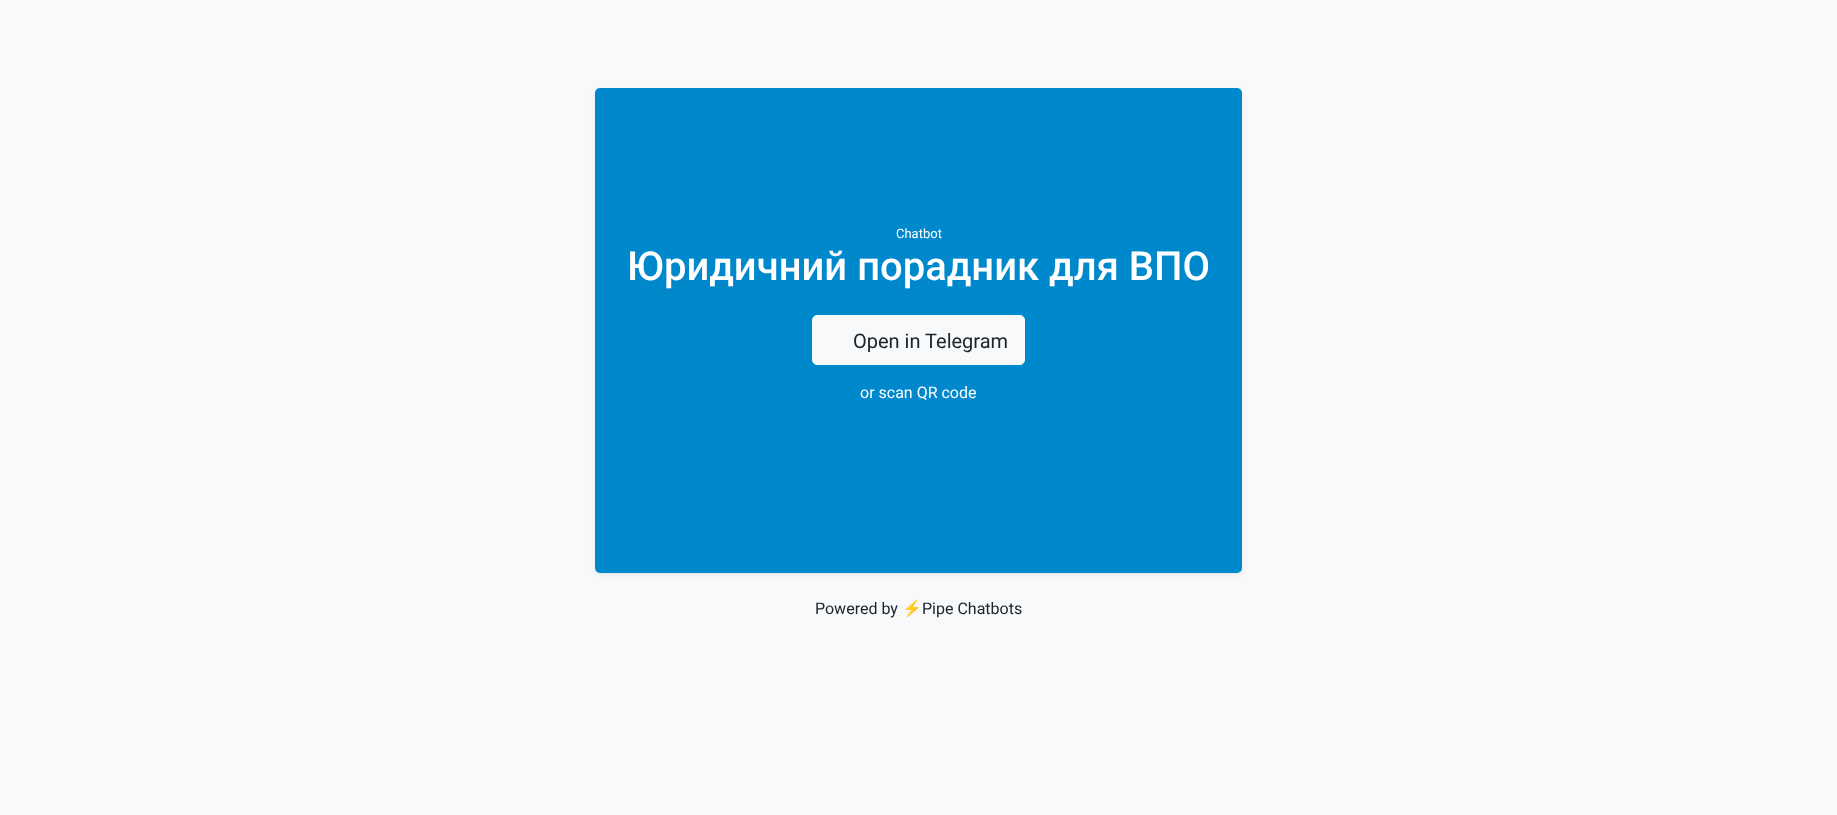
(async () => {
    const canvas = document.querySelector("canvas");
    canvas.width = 1837;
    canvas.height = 815;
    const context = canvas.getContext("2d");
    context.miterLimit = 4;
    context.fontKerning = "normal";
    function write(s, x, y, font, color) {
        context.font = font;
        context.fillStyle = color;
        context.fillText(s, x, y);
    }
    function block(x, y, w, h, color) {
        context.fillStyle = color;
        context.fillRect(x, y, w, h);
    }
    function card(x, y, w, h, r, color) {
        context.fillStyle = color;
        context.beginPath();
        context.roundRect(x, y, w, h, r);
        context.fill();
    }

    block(0, 0, 1837, 815, "rgb(248, 249, 250)");
    context.fillStyle = "rgba(0, 0, 0, 0.07)";
    context.filter = "blur(2px)";
    context.beginPath();
    context.roundRect(595, 90, 647, 485, 5);
    context.fill();
    context.filter = "none";
    card(595, 88, 647, 485, 5, "rgb(0, 136, 204)");
    write("Chatbot", 896, 238, "13px Roboto", "rgb(255, 255, 255)");
    write("Юридичний порадник для ВПО", 627, 280, "500 40px Roboto", "rgb(255, 255, 255)");
    context.fillStyle = "rgb(248, 249, 250)";
    context.beginPath();
    context.roundRect(812.5, 315.5, 212, 49, 4.5);
    context.fill();
    context.strokeStyle = "rgb(248, 249, 250)";
    context.stroke();
    write("Open in Telegram", 853, 348, "20px Roboto", "rgb(33, 37, 41)");
    write("or scan QR code", 860, 398, "16px Roboto", "rgb(255, 255, 255)");
    write("Powered by", 815, 614, "16px Roboto", "rgb(33, 37, 41)");
    write("⚡️", 902, 614, "16px Noto Color Emoji", "rgb(33, 37, 41)");
    write("Pipe Chatbots", 922, 614, "16px Roboto", "rgb(33, 37, 41)");
})();
